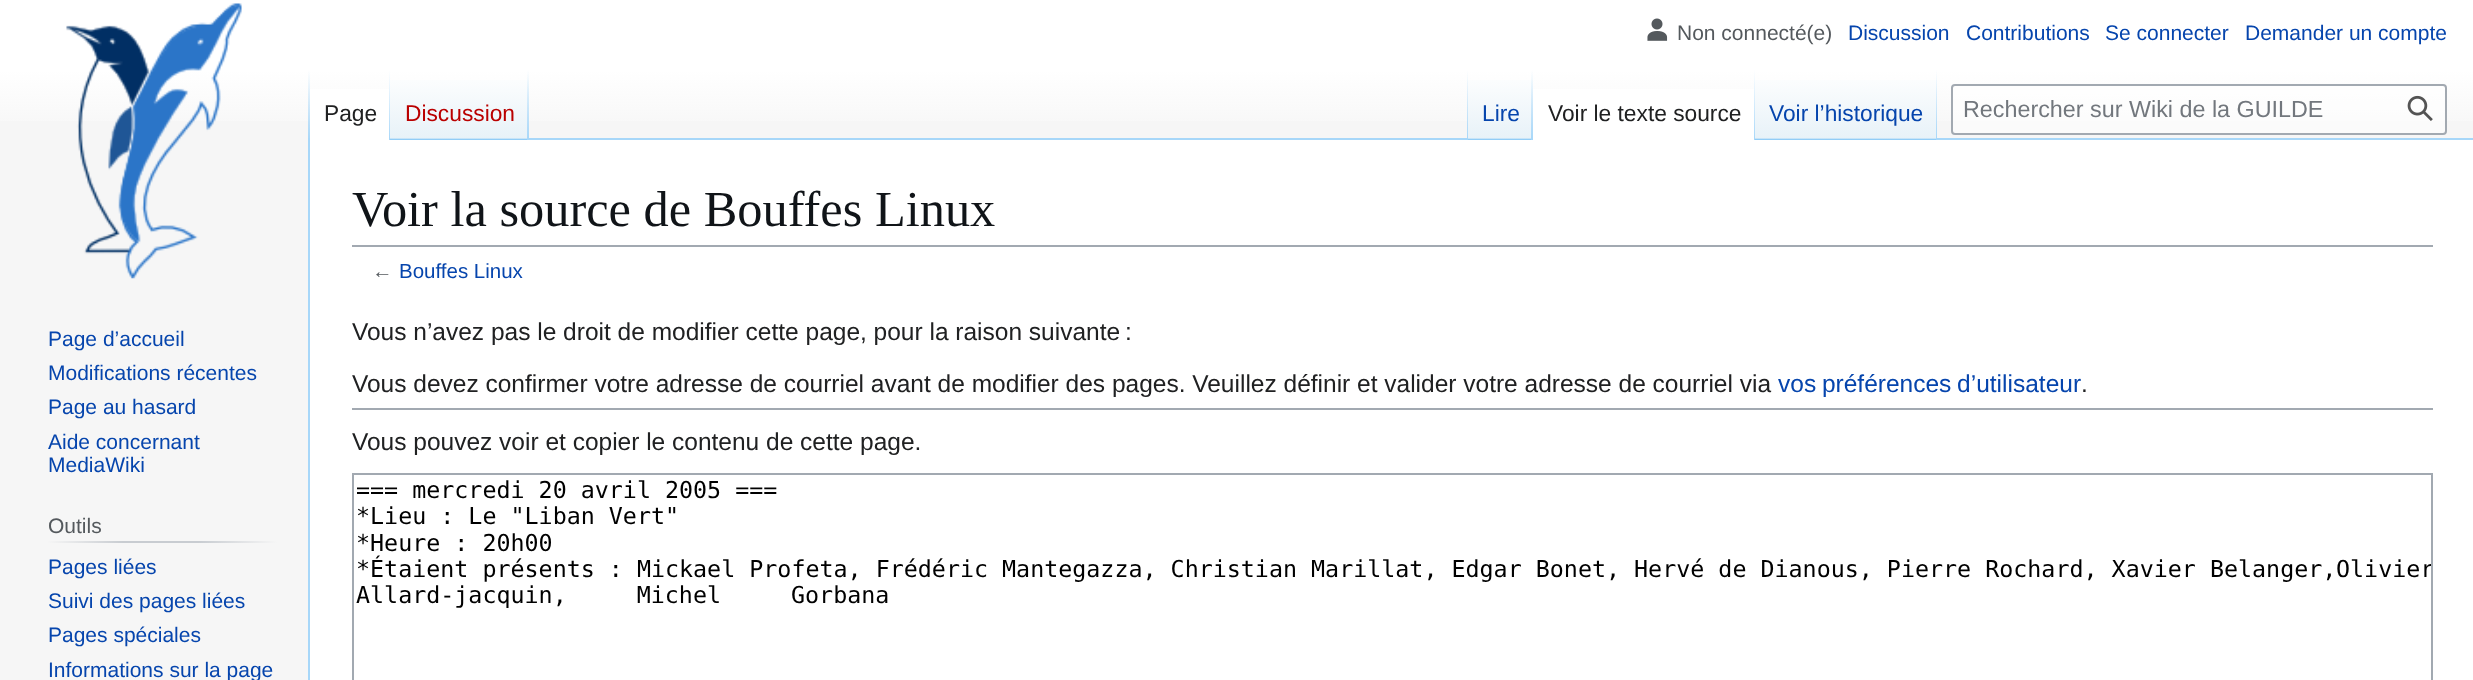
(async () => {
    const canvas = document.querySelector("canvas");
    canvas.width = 2473;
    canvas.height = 680;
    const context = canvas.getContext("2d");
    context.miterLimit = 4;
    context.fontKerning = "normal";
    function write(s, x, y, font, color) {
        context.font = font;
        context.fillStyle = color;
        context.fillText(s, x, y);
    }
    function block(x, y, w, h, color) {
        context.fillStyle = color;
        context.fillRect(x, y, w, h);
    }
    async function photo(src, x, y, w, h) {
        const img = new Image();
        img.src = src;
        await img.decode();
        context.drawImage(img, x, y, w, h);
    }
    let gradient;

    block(0, 0, 2473, 680, "rgb(246, 246, 246)");
    gradient = context.createLinearGradient(1237, 0, 1237, 140);
    gradient.addColorStop(0.5, "rgb(255, 255, 255)");
    gradient.addColorStop(1, "rgb(246, 246, 246)");
    context.fillStyle = gradient;
    context.fillRect(0, 0, 2473, 121);
    await photo("media/1.png", 1647, 18, 21, 23);
    write("Non connecté(e)", 1677, 40, "21px Liberation Sans", "rgb(84, 89, 93)");
    write("Discussion", 1848, 40, "21px Liberation Sans", "rgb(6, 69, 173)");
    write("Contributions", 1966, 40, "21px Liberation Sans", "rgb(6, 69, 173)");
    write("Se connecter", 2105, 40, "21px Liberation Sans", "rgb(6, 69, 173)");
    write("Demander un compte", 2245, 40, "21px Liberation Sans", "rgb(6, 69, 173)");
    block(308, 138, 2, 542, "rgb(167, 215, 249)");
    gradient = context.createLinearGradient(309, 70, 309, 140);
    gradient.addColorStop(0, "rgba(167, 215, 249, 0)");
    gradient.addColorStop(1, "rgb(167, 215, 249)");
    context.fillStyle = gradient;
    context.fillRect(308, 70, 2, 70);
    block(310, 89, 79, 51, "rgb(255, 255, 255)");
    gradient = context.createLinearGradient(389, 70, 389, 140);
    gradient.addColorStop(0, "rgb(255, 255, 255)");
    gradient.addColorStop(1, "rgb(167, 215, 249)");
    context.fillStyle = gradient;
    context.fillRect(389, 70, 1, 70);
    write("Page", 324, 121, "22.75px Liberation Sans", "rgb(32, 33, 34)");
    gradient = context.createLinearGradient(459, 140, 459, 70);
    gradient.addColorStop(0, "rgb(119, 193, 246)");
    gradient.addColorStop(0.03, "rgb(232, 242, 248)");
    gradient.addColorStop(1, "rgb(255, 255, 255)");
    context.fillStyle = gradient;
    context.fillRect(390, 80, 139, 60);
    gradient = context.createLinearGradient(528, 70, 528, 140);
    gradient.addColorStop(0, "rgba(167, 215, 249, 0)");
    gradient.addColorStop(1, "rgb(167, 215, 249)");
    context.fillStyle = gradient;
    context.fillRect(527, 70, 2, 70);
    write("Discussion", 405, 121, "22.75px Liberation Sans", "rgb(186, 0, 0)");
    block(529, 138, 1944, 2, "rgb(167, 215, 249)");
    gradient = context.createLinearGradient(1467, 70, 1467, 140);
    gradient.addColorStop(0, "rgba(167, 215, 249, 0)");
    gradient.addColorStop(1, "rgb(167, 215, 249)");
    context.fillStyle = gradient;
    context.fillRect(1467, 70, 1, 70);
    gradient = context.createLinearGradient(1501, 140, 1501, 70);
    gradient.addColorStop(0, "rgb(119, 193, 246)");
    gradient.addColorStop(0.03, "rgb(232, 242, 248)");
    gradient.addColorStop(1, "rgb(255, 255, 255)");
    context.fillStyle = gradient;
    context.fillRect(1468, 80, 65, 60);
    gradient = context.createLinearGradient(1532, 70, 1532, 140);
    gradient.addColorStop(0, "rgba(167, 215, 249, 0)");
    gradient.addColorStop(1, "rgb(167, 215, 249)");
    context.fillStyle = gradient;
    context.fillRect(1531, 70, 2, 70);
    write("Lire", 1482, 121, "22.75px Liberation Sans", "rgb(6, 69, 173)");
    block(1533, 89, 221, 51, "rgb(255, 255, 255)");
    gradient = context.createLinearGradient(1754, 70, 1754, 140);
    gradient.addColorStop(0, "rgb(255, 255, 255)");
    gradient.addColorStop(1, "rgb(167, 215, 249)");
    context.fillStyle = gradient;
    context.fillRect(1754, 70, 1, 70);
    write("Voir le texte source", 1548, 121, "22.75px Liberation Sans", "rgb(32, 33, 34)");
    gradient = context.createLinearGradient(1846, 140, 1846, 70);
    gradient.addColorStop(0, "rgb(119, 193, 246)");
    gradient.addColorStop(0.03, "rgb(232, 242, 248)");
    gradient.addColorStop(1, "rgb(255, 255, 255)");
    context.fillStyle = gradient;
    context.fillRect(1755, 80, 182, 60);
    gradient = context.createLinearGradient(1936, 70, 1936, 140);
    gradient.addColorStop(0, "rgba(167, 215, 249, 0)");
    gradient.addColorStop(1, "rgb(167, 215, 249)");
    context.fillStyle = gradient;
    context.fillRect(1936, 70, 1, 70);
    write("Voir l’historique", 1769, 121, "22.75px Liberation Sans", "rgb(6, 69, 173)");
    context.fillStyle = "rgba(255, 255, 255, 0.5)";
    context.beginPath();
    context.roundRect(1952, 85, 494, 49, 3);
    context.fill();
    context.strokeStyle = "rgb(162, 169, 177)";
    context.lineWidth = 2;
    context.stroke();
    write("Rechercher sur Wiki de la GUILDE", 1963, 117, "23.33px Liberation Sans", "rgb(114, 119, 125)");
    await photo("media/2.png", 2407, 95, 26, 26);
    await photo("media/3.png", 66, 3, 176, 276);
    write("Page d’accueil", 48, 346, "21px Liberation Sans", "rgb(6, 69, 173)");
    write("Modifications récentes", 48, 380, "21px Liberation Sans", "rgb(6, 69, 173)");
    write("Page au hasard", 48, 414, "21px Liberation Sans", "rgb(6, 69, 173)");
    write("Aide concernant", 48, 449, "21px Liberation Sans", "rgb(6, 69, 173)");
    write("MediaWiki", 48, 472, "21px Liberation Sans", "rgb(6, 69, 173)");
    gradient = context.createLinearGradient(47, 542, 277, 542);
    gradient.addColorStop(0, "rgb(246, 246, 246)");
    gradient.addColorStop(0.33, "rgb(200, 204, 209)");
    gradient.addColorStop(0.66, "rgb(200, 204, 209)");
    gradient.addColorStop(1, "rgb(246, 246, 246)");
    context.fillStyle = gradient;
    context.fillRect(47, 541, 230, 2);
    write("Outils", 48, 533, "21px Liberation Sans", "rgb(84, 89, 93)");
    write("Pages liées", 48, 574, "21px Liberation Sans", "rgb(6, 69, 173)");
    write("Suivi des pages liées", 48, 608, "21px Liberation Sans", "rgb(6, 69, 173)");
    write("Pages spéciales", 48, 642, "21px Liberation Sans", "rgb(6, 69, 173)");
    write("Informations sur la page", 48, 677, "21px Liberation Sans", "rgb(6, 69, 173)");
    block(310, 140, 2163, 540, "rgb(255, 255, 255)");
    block(352, 245, 2081, 2, "rgb(162, 169, 177)");
    write("Voir la source de Bouffes Linux", 352, 226, "50.4px Liberation Serif", "rgb(16, 20, 24)");
    write("←", 372, 278, "20.5px Liberation Sans", "rgb(84, 89, 93)");
    write("Bouffes Linux", 399, 278, "20.5px Liberation Sans", "rgb(6, 69, 173)");
    write("Vous n’avez pas le droit de modifier cette page, pour la raison suivante :", 352, 340, "24.5px Liberation Sans", "rgb(32, 33, 34)");
    write("Vous devez confirmer votre adresse de courriel avant de modifier des pages. Veuillez définir et valider votre adresse de courriel via", 352, 392, "24.5px Liberation Sans", "rgb(32, 33, 34)");
    context.wordSpacing = "-1px";
    write("vos préférences d’utilisateur", 1778, 392, "24.5px Liberation Sans", "rgb(6, 69, 173)");
    context.wordSpacing = "0px";
    write(".", 2081, 392, "24.5px Liberation Sans", "rgb(32, 33, 34)");
    block(352, 408, 2081, 2, "rgb(162, 169, 177)");
    write("Vous pouvez voir et copier le contenu de cette page.", 352, 450, "24.5px Liberation Sans", "rgb(32, 33, 34)");
    context.strokeRect(353, 474, 2079, 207);
    write("=== mercredi 20 avril 2005 ===", 356, 498, "23.33px DejaVu Sans Mono", "rgb(0, 0, 0)");
    write("*Lieu : Le \"Liban Vert\"", 356, 524, "23.33px DejaVu Sans Mono", "rgb(0, 0, 0)");
    write("*Heure : 20h00", 356, 551, "23.33px DejaVu Sans Mono", "rgb(0, 0, 0)");
    write("*Étaient présents : Mickael Profeta, Frédéric Mantegazza, Christian Marillat, Edgar Bonet, Hervé de Dianous, Pierre Rochard, Xavier Belanger,", 356, 577, "23.33px DejaVu Sans Mono", "rgb(0, 0, 0)");
    context.save();
    context.beginPath();
    context.rect(354, 474, 2077, 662);
    context.clip();
    write("Olivier", 2336, 577, "23.33px DejaVu Sans Mono", "rgb(0, 0, 0)");
    context.restore();
    context.wordSpacing = "56px";
    write("Allard-jacquin, Michel Gorbana", 356, 603, "23.33px DejaVu Sans Mono", "rgb(0, 0, 0)");
})();
